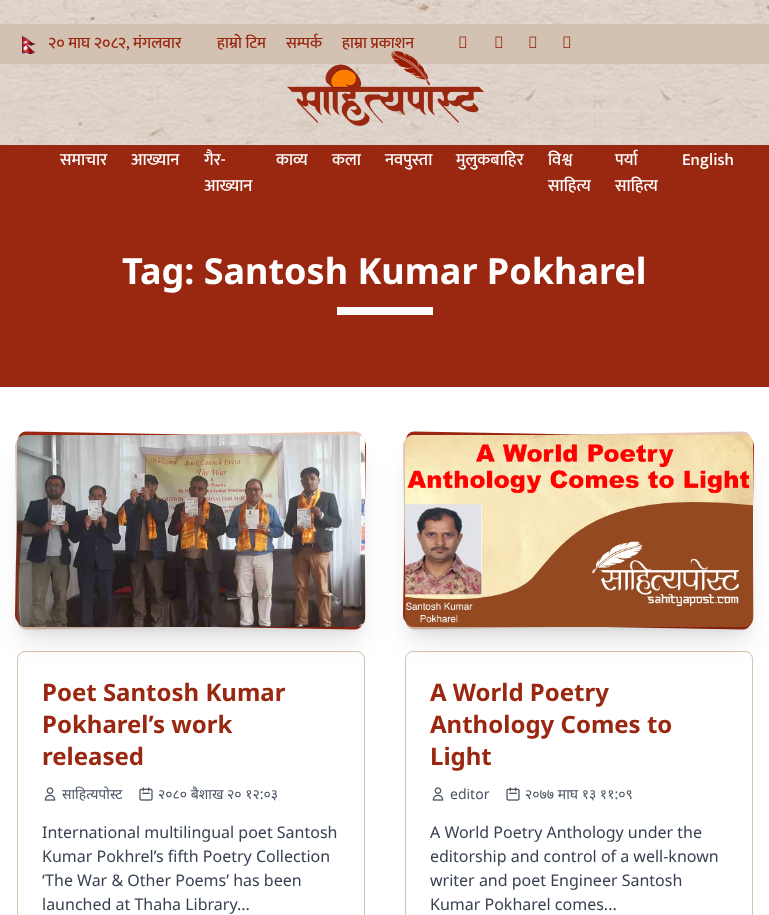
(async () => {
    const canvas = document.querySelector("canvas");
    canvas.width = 769;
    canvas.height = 915;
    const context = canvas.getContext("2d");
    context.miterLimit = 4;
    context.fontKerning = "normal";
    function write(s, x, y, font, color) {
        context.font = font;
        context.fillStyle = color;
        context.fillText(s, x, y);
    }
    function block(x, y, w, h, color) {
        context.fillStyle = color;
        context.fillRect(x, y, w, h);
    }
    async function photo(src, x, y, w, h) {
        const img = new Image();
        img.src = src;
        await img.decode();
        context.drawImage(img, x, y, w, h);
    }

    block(0, 0, 769, 915, "rgb(255, 255, 255)");
    await photo("media/1.png", 0, 0, 769, 145);
    block(0, 24, 769, 40, "rgb(211, 193, 178)");
    await photo("media/2.png", 22, 35, 14, 19);
    write("२० माघ २०८२, मंगलवार", 48, 48, "500 16px Mukta", "rgb(154, 39, 16)");
    write("हाम्रो टिम", 217, 48, "500 16px Mukta", "rgb(154, 39, 16)");
    write("सम्पर्क", 286, 48, "500 16px Mukta", "rgb(154, 39, 16)");
    write("हाम्रा प्रकाशन", 342, 48, "500 16px Mukta", "rgb(154, 39, 16)");
    await photo("media/3.png", 459, 36, 8, 12);
    await photo("media/3.png", 495, 36, 8, 12);
    await photo("media/3.png", 529, 36, 8, 12);
    await photo("media/3.png", 563, 36, 8, 12);
    await photo("media/4.png", 287, 50, 198, 76);
    block(0, 145, 769, 242, "rgb(154, 39, 16)");
    write("समाचार", 60, 165, "500 17px Mukta", "rgb(255, 255, 255)");
    write("आख्यान", 131, 165, "500 17px Mukta", "rgb(255, 255, 255)");
    write("गैर-", 204, 165, "500 17px Mukta", "rgb(255, 255, 255)");
    write("आख्यान", 204, 191, "500 17px Mukta", "rgb(255, 255, 255)");
    write("काव्य", 276, 165, "500 17px Mukta", "rgb(255, 255, 255)");
    write("कला", 332, 165, "500 17px Mukta", "rgb(255, 255, 255)");
    write("नवपुस्ता", 385, 165, "500 17px Mukta", "rgb(255, 255, 255)");
    write("मुलुकबाहिर", 456, 165, "500 17px Mukta", "rgb(255, 255, 255)");
    write("विश्व", 548, 165, "500 17px Mukta", "rgb(255, 255, 255)");
    write("साहित्य", 548, 191, "500 17px Mukta", "rgb(255, 255, 255)");
    write("पर्या", 615, 165, "500 17px Mukta", "rgb(255, 255, 255)");
    write("साहित्य", 615, 191, "500 17px Mukta", "rgb(255, 255, 255)");
    write("English", 682, 165, "500 17px Mukta", "rgb(255, 255, 255)");
    write("Tag: Santosh Kumar Pokharel", 122, 284, "bold 36px Noto Sans", "rgb(255, 255, 255)");
    block(337, 307, 96, 8, "rgb(255, 255, 255)");
    context.beginPath();
    context.moveTo(26, 433.5);
    context.lineTo(358, 439.5);
    context.bezierCurveTo(361.5, 439.5, 364, 442, 364, 445.5);
    context.lineTo(361, 621.5);
    context.bezierCurveTo(361, 625, 358, 627.5, 355, 627.5);
    context.lineTo(23, 621.5);
    context.bezierCurveTo(19.5, 621.5, 17, 619, 17, 615.5);
    context.lineTo(20, 439.5);
    context.bezierCurveTo(20, 436, 23, 433.5, 26, 433.5);
    context.closePath();
    context.strokeStyle = "rgb(154, 39, 16)";
    context.lineWidth = 4;
    context.stroke();
    context.beginPath();
    context.moveTo(23, 439.5);
    context.lineTo(355, 433.5);
    context.bezierCurveTo(358, 433.5, 361, 436, 361, 439.5);
    context.lineTo(364, 615.5);
    context.bezierCurveTo(364, 619, 361.5, 621.5, 358, 621.5);
    context.lineTo(26, 627.5);
    context.bezierCurveTo(23, 627.5, 20, 625, 20, 621.5);
    context.lineTo(17, 445.5);
    context.bezierCurveTo(17, 442, 19.5, 439.5, 23, 439.5);
    context.closePath();
    context.strokeStyle = "rgb(232, 200, 181)";
    context.stroke();
    context.fillStyle = "rgba(0, 0, 0, 0.1)";
    context.filter = "blur(5px)";
    context.beginPath();
    context.roundRect(23, 449, 336, 180, 2);
    context.fill();
    context.filter = "none";
    context.beginPath();
    context.roundRect(17.5, 651.5, 347, 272, 7.5);
    context.strokeStyle = "rgb(215, 196, 176)";
    context.lineWidth = 1;
    context.stroke();
    context.filter = "blur(12.5px)";
    context.beginPath();
    context.roundRect(22, 460, 338, 182, 3);
    context.fill();
    context.filter = "none";
    await photo("media/5.png", 17, 435, 348, 192);
    write("Poet Santosh Kumar", 42, 701, "bold 24px Noto Sans", "rgb(154, 39, 16)");
    write("Pokharel’s work", 42, 733, "bold 24px Noto Sans", "rgb(154, 39, 16)");
    write("released", 42, 765, "bold 24px Noto Sans", "rgb(154, 39, 16)");
    await photo("media/6.png", 44, 787, 12, 14);
    write("साहित्यपोस्ट", 62, 799, "14px Noto Sans", "rgb(75, 85, 99)");
    await photo("media/7.png", 139, 787, 14, 14);
    write("२०८० बैशाख २० १२:०३", 158, 799, "14px Noto Sans", "rgb(75, 85, 99)");
    write("International multilingual poet Santosh", 42, 838, "16px Noto Sans", "rgb(55, 65, 81)");
    write("Kumar Pokhrel’s fifth Poetry Collection", 42, 862, "16px Noto Sans", "rgb(55, 65, 81)");
    write("‘The War & Other Poems’ has been", 42, 886, "16px Noto Sans", "rgb(55, 65, 81)");
    write("launched at Thaha Library...", 42, 910, "16px Noto Sans", "rgb(55, 65, 81)");
    context.beginPath();
    context.moveTo(414, 433.5);
    context.lineTo(746, 439.5);
    context.bezierCurveTo(749.5, 439.5, 752, 442, 752, 445.5);
    context.lineTo(749, 621.5);
    context.bezierCurveTo(749, 625, 746, 627.5, 743, 627.5);
    context.lineTo(411, 621.5);
    context.bezierCurveTo(407.5, 621.5, 405, 619, 405, 615.5);
    context.lineTo(408, 439.5);
    context.bezierCurveTo(408, 436, 411, 433.5, 414, 433.5);
    context.closePath();
    context.strokeStyle = "rgb(154, 39, 16)";
    context.lineWidth = 4;
    context.stroke();
    context.beginPath();
    context.moveTo(411, 439.5);
    context.lineTo(743, 433.5);
    context.bezierCurveTo(746, 433.5, 749, 436, 749, 439.5);
    context.lineTo(752, 615.5);
    context.bezierCurveTo(752, 619, 749.5, 621.5, 746, 621.5);
    context.lineTo(414, 627.5);
    context.bezierCurveTo(411, 627.5, 408, 625, 408, 621.5);
    context.lineTo(405, 445.5);
    context.bezierCurveTo(405, 442, 407.5, 439.5, 411, 439.5);
    context.closePath();
    context.strokeStyle = "rgb(232, 200, 181)";
    context.stroke();
    context.fillStyle = "rgba(0, 0, 0, 0.1)";
    context.filter = "blur(5px)";
    context.beginPath();
    context.roundRect(411, 449, 336, 180, 2);
    context.fill();
    context.filter = "none";
    context.beginPath();
    context.roundRect(405.5, 651.5, 347, 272, 7.5);
    context.strokeStyle = "rgb(215, 196, 176)";
    context.lineWidth = 1;
    context.stroke();
    context.filter = "blur(12.5px)";
    context.beginPath();
    context.roundRect(410, 460, 338, 182, 3);
    context.fill();
    context.filter = "none";
    await photo("media/8.png", 405, 435, 348, 192);
    write("A World Poetry", 430, 701, "bold 24px Noto Sans", "rgb(154, 39, 16)");
    write("Anthology Comes to", 430, 733, "bold 24px Noto Sans", "rgb(154, 39, 16)");
    write("Light", 430, 765, "bold 24px Noto Sans", "rgb(154, 39, 16)");
    await photo("media/6.png", 432, 787, 12, 14);
    write("editor", 450, 799, "14px Noto Sans", "rgb(75, 85, 99)");
    await photo("media/7.png", 506, 787, 14, 14);
    write("२०७७ माघ १३ ११:०९", 525, 799, "14px Noto Sans", "rgb(75, 85, 99)");
    write("A World Poetry Anthology under the", 430, 838, "16px Noto Sans", "rgb(55, 65, 81)");
    write("editorship and control of a well-known", 430, 862, "16px Noto Sans", "rgb(55, 65, 81)");
    write("writer and poet Engineer Santosh", 430, 886, "16px Noto Sans", "rgb(55, 65, 81)");
    write("Kumar Pokharel comes...", 430, 910, "16px Noto Sans", "rgb(55, 65, 81)");
})();
